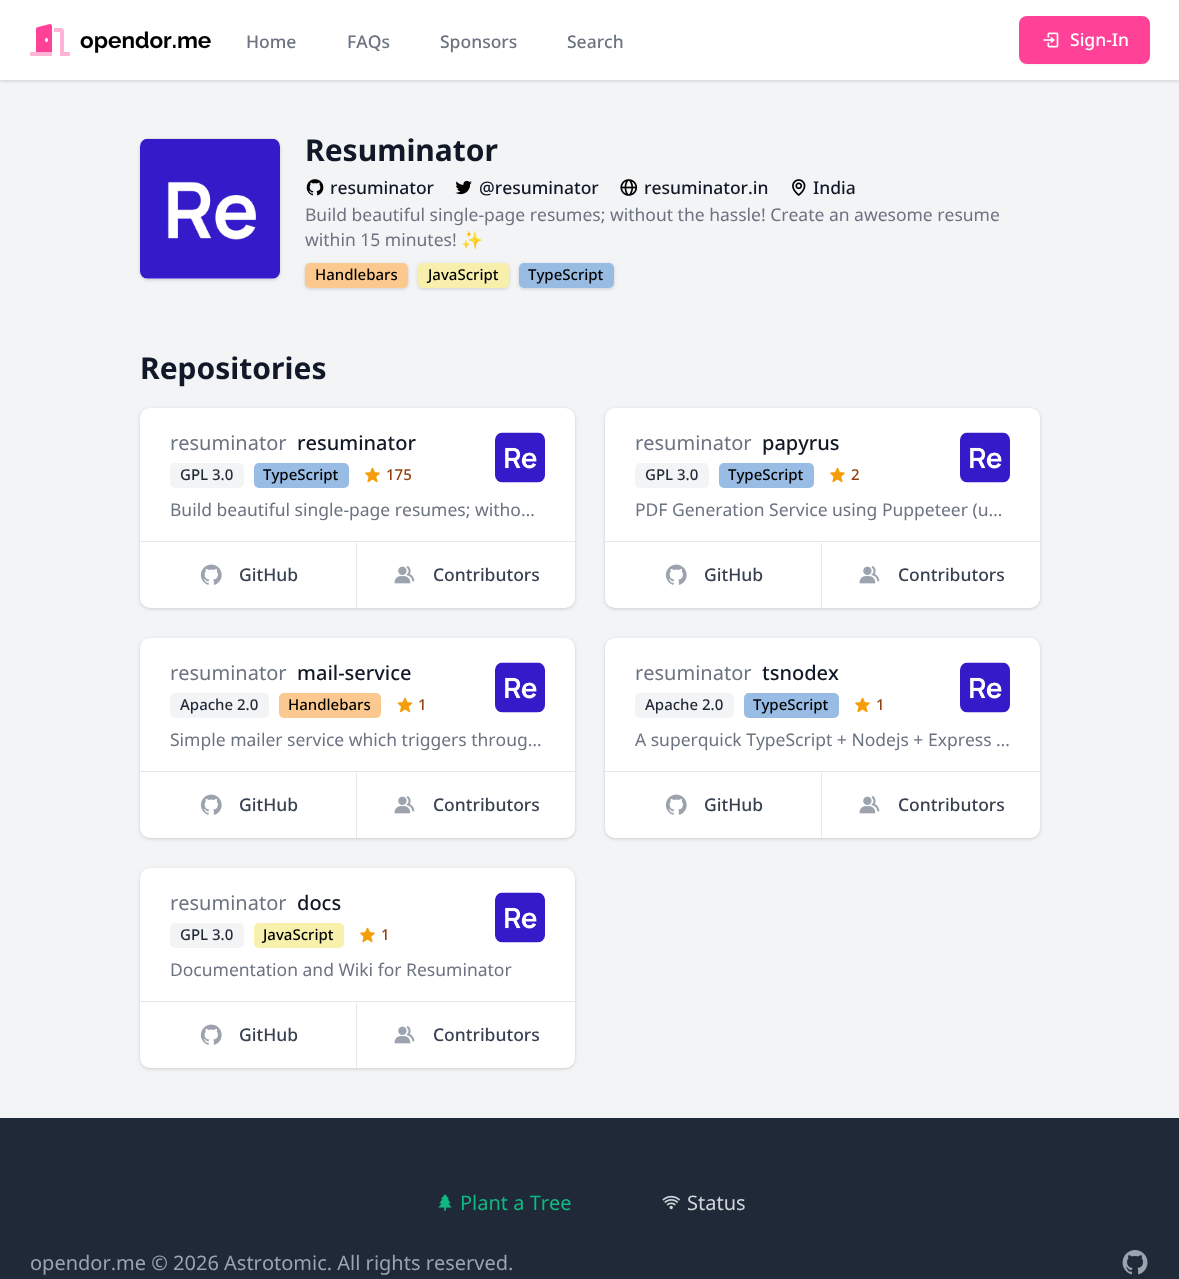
(async () => {
    const canvas = document.querySelector("canvas");
    canvas.width = 1179;
    canvas.height = 1279;
    const context = canvas.getContext("2d");
    context.miterLimit = 4;
    context.fontKerning = "none";
    function write(s, x, y, font, color) {
        context.font = font;
        context.fillStyle = color;
        context.fillText(s, x, y);
    }
    function block(x, y, w, h, color) {
        context.fillStyle = color;
        context.fillRect(x, y, w, h);
    }
    function card(x, y, w, h, r, color) {
        context.fillStyle = color;
        context.beginPath();
        context.roundRect(x, y, w, h, r);
        context.fill();
    }
    async function photo(src, x, y, w, h) {
        const img = new Image();
        img.src = src;
        await img.decode();
        context.drawImage(img, x, y, w, h);
    }

    block(0, 0, 1179, 1279, "rgb(243, 244, 246)");
    context.fillStyle = "rgba(0, 0, 0, 0.06)";
    context.filter = "blur(1px)";
    context.beginPath();
    context.rect(0, 1, 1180, 80);
    context.fill();
    context.filter = "none";
    context.fillStyle = "rgba(0, 0, 0, 0.1)";
    context.filter = "blur(2px)";
    context.beginPath();
    context.rect(0, 1, 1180, 80);
    context.fill();
    context.filter = "none";
    block(0, 0, 1179, 80, "rgb(255, 255, 255)");
    await photo("media/1.png", 30, 24, 40, 32);
    write("opendor.me", 80, 48, "bold 22.5px Raleway", "rgb(0, 0, 0)");
    write("Home", 246, 48, "500 17.5px Noto Sans", "rgb(107, 114, 128)");
    write("FAQs", 347, 48, "500 17.5px Noto Sans", "rgb(107, 114, 128)");
    write("Sponsors", 440, 48, "500 17.5px Noto Sans", "rgb(107, 114, 128)");
    write("Search", 567, 48, "500 17.5px Noto Sans", "rgb(107, 114, 128)");
    context.fillStyle = "rgba(0, 0, 0, 0.05)";
    context.filter = "blur(1px)";
    context.beginPath();
    context.roundRect(1019, 18, 131, 47, 8);
    context.fill();
    context.filter = "none";
    card(1019, 16, 131, 48, 8, "rgb(255, 66, 151)");
    await photo("media/2.png", 1043, 32, 16, 16);
    write("Sign-In", 1070, 46, "500 17.5px Noto Sans", "rgb(255, 255, 255)");
    context.fillStyle = "rgba(0, 0, 0, 0.06)";
    context.filter = "blur(1px)";
    context.beginPath();
    context.roundRect(140, 140, 140, 140, 8);
    context.fill();
    context.filter = "none";
    context.fillStyle = "rgba(0, 0, 0, 0.1)";
    context.filter = "blur(2px)";
    context.beginPath();
    context.roundRect(140, 140, 140, 140, 8);
    context.fill();
    context.filter = "none";
    card(140, 139, 140, 140, 8, "rgb(255, 255, 255)");
    await photo("media/3.png", 140, 138, 140, 141);
    write("Resuminator", 305, 161, "bold 30px Noto Sans", "rgb(17, 24, 39)");
    await photo("media/4.png", 306, 179, 18, 17);
    write("resuminator", 330, 194, "500 17.5px Noto Sans", "rgb(17, 24, 39)");
    await photo("media/5.png", 455, 180, 17, 15);
    write("@resuminator", 479, 194, "500 17.5px Noto Sans", "rgb(17, 24, 39)");
    await photo("media/6.png", 620, 179, 18, 17);
    write("resuminator.in", 644, 194, "500 17.5px Noto Sans", "rgb(17, 24, 39)");
    await photo("media/7.png", 792, 179, 14, 17);
    write("India", 813, 194, "500 17.5px Noto Sans", "rgb(17, 24, 39)");
    write("Build beautiful single-page resumes; without the hassle! Create an awesome resume", 305, 221, "17.5px Noto Sans", "rgb(107, 114, 128)");
    write("within 15 minutes!", 305, 246, "17.5px Noto Sans", "rgb(107, 114, 128)");
    write("✨", 461, 246, "17.5px Noto Color Emoji", "rgb(107, 114, 128)");
    context.fillStyle = "rgba(0, 0, 0, 0.06)";
    context.filter = "blur(1px)";
    context.beginPath();
    context.roundRect(305, 264, 103, 25, 5);
    context.fill();
    context.filter = "none";
    context.fillStyle = "rgba(0, 0, 0, 0.1)";
    context.filter = "blur(2px)";
    context.beginPath();
    context.roundRect(305, 264, 103, 25, 5);
    context.fill();
    context.filter = "none";
    card(305, 263, 103, 25, 5, "rgb(255, 255, 255)");
    card(305, 263, 103, 25, 5, "rgba(247, 147, 30, 0.5)");
    write("Handlebars", 315, 280, "500 15px Noto Sans", "rgb(0, 0, 0)");
    context.fillStyle = "rgba(0, 0, 0, 0.06)";
    context.filter = "blur(1px)";
    context.beginPath();
    context.roundRect(418, 264, 91, 25, 5);
    context.fill();
    context.filter = "none";
    context.fillStyle = "rgba(0, 0, 0, 0.1)";
    context.filter = "blur(2px)";
    context.beginPath();
    context.roundRect(418, 264, 91, 25, 5);
    context.fill();
    context.filter = "none";
    card(418, 263, 91, 25, 5, "rgb(255, 255, 255)");
    card(418, 263, 91, 25, 5, "rgba(241, 224, 90, 0.5)");
    write("JavaScript", 428, 280, "500 15px Noto Sans", "rgb(0, 0, 0)");
    context.fillStyle = "rgba(0, 0, 0, 0.06)";
    context.filter = "blur(1px)";
    context.beginPath();
    context.roundRect(519, 264, 95, 25, 5);
    context.fill();
    context.filter = "none";
    context.fillStyle = "rgba(0, 0, 0, 0.1)";
    context.filter = "blur(2px)";
    context.beginPath();
    context.roundRect(519, 264, 95, 25, 5);
    context.fill();
    context.filter = "none";
    card(519, 263, 95, 25, 5, "rgb(255, 255, 255)");
    card(519, 263, 95, 25, 5, "rgba(49, 120, 198, 0.5)");
    write("TypeScript", 528, 280, "500 15px Noto Sans", "rgb(0, 0, 0)");
    write("Repositories", 140, 379, "bold 30px Noto Sans", "rgb(17, 24, 39)");
    context.fillStyle = "rgba(0, 0, 0, 0.06)";
    context.filter = "blur(1px)";
    context.beginPath();
    context.roundRect(140, 409, 435, 200, 10);
    context.fill();
    context.filter = "none";
    context.fillStyle = "rgba(0, 0, 0, 0.1)";
    context.filter = "blur(2px)";
    context.beginPath();
    context.roundRect(140, 409, 435, 200, 10);
    context.fill();
    context.filter = "none";
    card(140, 408, 435, 200, 10, "rgb(255, 255, 255)");
    write("resuminator", 170, 450, "20px Noto Sans", "rgb(107, 114, 128)");
    write("resuminator", 297, 450, "500 20px Noto Sans", "rgb(17, 24, 39)");
    card(170, 463, 74, 25, 5, "rgb(243, 244, 246)");
    write("GPL 3.0", 180, 480, "500 15px Noto Sans", "rgb(31, 41, 55)");
    card(254, 463, 95, 25, 5, "rgb(152, 188, 227)");
    write("TypeScript", 263, 480, "500 15px Noto Sans", "rgb(0, 0, 0)");
    await photo("media/8.png", 365, 467, 15, 16);
    write("175", 386, 480, "500 15px Noto Sans", "rgb(146, 64, 14)");
    await photo("media/9.png", 495, 432, 50, 51);
    write("Build beautiful single-page resumes; witho…", 170, 516, "17.5px Noto Sans", "rgb(107, 114, 128)");
    block(140, 541, 435, 1, "rgb(229, 231, 235)");
    await photo("media/10.png", 200, 564, 22, 21);
    write("GitHub", 239, 581, "500 17.5px Noto Sans", "rgb(55, 65, 81)");
    block(356, 543, 1, 65, "rgb(229, 231, 235)");
    await photo("media/11.png", 394, 566, 21, 18);
    write("Contributors", 433, 581, "500 17.5px Noto Sans", "rgb(55, 65, 81)");
    context.fillStyle = "rgba(0, 0, 0, 0.06)";
    context.filter = "blur(1px)";
    context.beginPath();
    context.roundRect(605, 409, 435, 200, 10);
    context.fill();
    context.filter = "none";
    context.fillStyle = "rgba(0, 0, 0, 0.1)";
    context.filter = "blur(2px)";
    context.beginPath();
    context.roundRect(605, 409, 435, 200, 10);
    context.fill();
    context.filter = "none";
    card(605, 408, 435, 200, 10, "rgb(255, 255, 255)");
    write("resuminator", 635, 450, "20px Noto Sans", "rgb(107, 114, 128)");
    write("papyrus", 762, 450, "500 20px Noto Sans", "rgb(17, 24, 39)");
    card(635, 463, 74, 25, 5, "rgb(243, 244, 246)");
    write("GPL 3.0", 645, 480, "500 15px Noto Sans", "rgb(31, 41, 55)");
    card(719, 463, 95, 25, 5, "rgb(152, 188, 227)");
    write("TypeScript", 728, 480, "500 15px Noto Sans", "rgb(0, 0, 0)");
    await photo("media/8.png", 830, 467, 15, 16);
    write("2", 851, 480, "500 15px Noto Sans", "rgb(146, 64, 14)");
    await photo("media/12.png", 960, 432, 50, 51);
    write("PDF Generation Service using Puppeteer (u…", 635, 516, "17.5px Noto Sans", "rgb(107, 114, 128)");
    block(605, 541, 435, 1, "rgb(229, 231, 235)");
    await photo("media/10.png", 665, 564, 22, 21);
    write("GitHub", 704, 581, "500 17.5px Noto Sans", "rgb(55, 65, 81)");
    block(821, 543, 1, 65, "rgb(229, 231, 235)");
    await photo("media/11.png", 859, 566, 21, 18);
    write("Contributors", 898, 581, "500 17.5px Noto Sans", "rgb(55, 65, 81)");
    context.fillStyle = "rgba(0, 0, 0, 0.06)";
    context.filter = "blur(1px)";
    context.beginPath();
    context.roundRect(140, 639, 435, 200, 10);
    context.fill();
    context.filter = "none";
    context.fillStyle = "rgba(0, 0, 0, 0.1)";
    context.filter = "blur(2px)";
    context.beginPath();
    context.roundRect(140, 639, 435, 200, 10);
    context.fill();
    context.filter = "none";
    card(140, 638, 435, 200, 10, "rgb(255, 255, 255)");
    write("resuminator", 170, 680, "20px Noto Sans", "rgb(107, 114, 128)");
    write("mail-service", 297, 680, "500 20px Noto Sans", "rgb(17, 24, 39)");
    card(170, 693, 99, 25, 5, "rgb(243, 244, 246)");
    write("Apache 2.0", 180, 710, "500 15px Noto Sans", "rgb(31, 41, 55)");
    card(279, 693, 102, 25, 5, "rgb(251, 201, 143)");
    write("Handlebars", 288, 710, "500 15px Noto Sans", "rgb(0, 0, 0)");
    await photo("media/13.png", 397, 697, 16, 16);
    write("1", 418, 710, "500 15px Noto Sans", "rgb(146, 64, 14)");
    await photo("media/9.png", 495, 662, 50, 51);
    write("Simple mailer service which triggers throug…", 170, 746, "17.5px Noto Sans", "rgb(107, 114, 128)");
    block(140, 771, 435, 1, "rgb(229, 231, 235)");
    await photo("media/10.png", 200, 794, 22, 21);
    write("GitHub", 239, 811, "500 17.5px Noto Sans", "rgb(55, 65, 81)");
    block(356, 773, 1, 65, "rgb(229, 231, 235)");
    await photo("media/11.png", 394, 796, 21, 18);
    write("Contributors", 433, 811, "500 17.5px Noto Sans", "rgb(55, 65, 81)");
    context.fillStyle = "rgba(0, 0, 0, 0.06)";
    context.filter = "blur(1px)";
    context.beginPath();
    context.roundRect(605, 639, 435, 200, 10);
    context.fill();
    context.filter = "none";
    context.fillStyle = "rgba(0, 0, 0, 0.1)";
    context.filter = "blur(2px)";
    context.beginPath();
    context.roundRect(605, 639, 435, 200, 10);
    context.fill();
    context.filter = "none";
    card(605, 638, 435, 200, 10, "rgb(255, 255, 255)");
    write("resuminator", 635, 680, "20px Noto Sans", "rgb(107, 114, 128)");
    write("tsnodex", 762, 680, "500 20px Noto Sans", "rgb(17, 24, 39)");
    card(635, 693, 99, 25, 5, "rgb(243, 244, 246)");
    write("Apache 2.0", 645, 710, "500 15px Noto Sans", "rgb(31, 41, 55)");
    card(744, 693, 95, 25, 5, "rgb(152, 188, 227)");
    write("TypeScript", 753, 710, "500 15px Noto Sans", "rgb(0, 0, 0)");
    await photo("media/8.png", 855, 697, 15, 16);
    write("1", 876, 710, "500 15px Noto Sans", "rgb(146, 64, 14)");
    await photo("media/12.png", 960, 662, 50, 51);
    write("A superquick TypeScript + Nodejs + Express …", 635, 746, "17.5px Noto Sans", "rgb(107, 114, 128)");
    block(605, 771, 435, 1, "rgb(229, 231, 235)");
    await photo("media/10.png", 665, 794, 22, 21);
    write("GitHub", 704, 811, "500 17.5px Noto Sans", "rgb(55, 65, 81)");
    block(821, 773, 1, 65, "rgb(229, 231, 235)");
    await photo("media/11.png", 859, 796, 21, 18);
    write("Contributors", 898, 811, "500 17.5px Noto Sans", "rgb(55, 65, 81)");
    context.fillStyle = "rgba(0, 0, 0, 0.06)";
    context.filter = "blur(1px)";
    context.beginPath();
    context.roundRect(140, 869, 435, 200, 10);
    context.fill();
    context.filter = "none";
    context.fillStyle = "rgba(0, 0, 0, 0.1)";
    context.filter = "blur(2px)";
    context.beginPath();
    context.roundRect(140, 869, 435, 200, 10);
    context.fill();
    context.filter = "none";
    card(140, 868, 435, 200, 10, "rgb(255, 255, 255)");
    write("resuminator", 170, 910, "20px Noto Sans", "rgb(107, 114, 128)");
    write("docs", 297, 910, "500 20px Noto Sans", "rgb(17, 24, 39)");
    card(170, 923, 74, 25, 5, "rgb(243, 244, 246)");
    write("GPL 3.0", 180, 940, "500 15px Noto Sans", "rgb(31, 41, 55)");
    card(254, 923, 90, 25, 5, "rgb(248, 240, 173)");
    write("JavaScript", 263, 940, "500 15px Noto Sans", "rgb(0, 0, 0)");
    await photo("media/8.png", 360, 927, 15, 16);
    write("1", 381, 940, "500 15px Noto Sans", "rgb(146, 64, 14)");
    await photo("media/14.png", 495, 892, 50, 51);
    write("Documentation and Wiki for Resuminator", 170, 976, "17.5px Noto Sans", "rgb(107, 114, 128)");
    block(140, 1001, 435, 1, "rgb(229, 231, 235)");
    await photo("media/10.png", 200, 1024, 22, 21);
    write("GitHub", 239, 1041, "500 17.5px Noto Sans", "rgb(55, 65, 81)");
    block(356, 1003, 1, 65, "rgb(229, 231, 235)");
    await photo("media/11.png", 394, 1026, 21, 18);
    write("Contributors", 433, 1041, "500 17.5px Noto Sans", "rgb(55, 65, 81)");
    block(0, 1118, 1179, 161, "rgb(31, 41, 55)");
    await photo("media/15.png", 438, 1194, 14, 17);
    write("Plant a Tree", 460, 1210, "20px Noto Sans", "rgb(16, 185, 129)");
    await photo("media/16.png", 662, 1195, 19, 15);
    write("Status", 687, 1210, "20px Noto Sans", "rgb(209, 213, 219)");
    write("opendor.me © 2026 Astrotomic. All rights reserved.", 30, 1270, "20px Noto Sans", "rgb(156, 163, 175)");
    await photo("media/17.png", 1122, 1250, 26, 25);
})();
